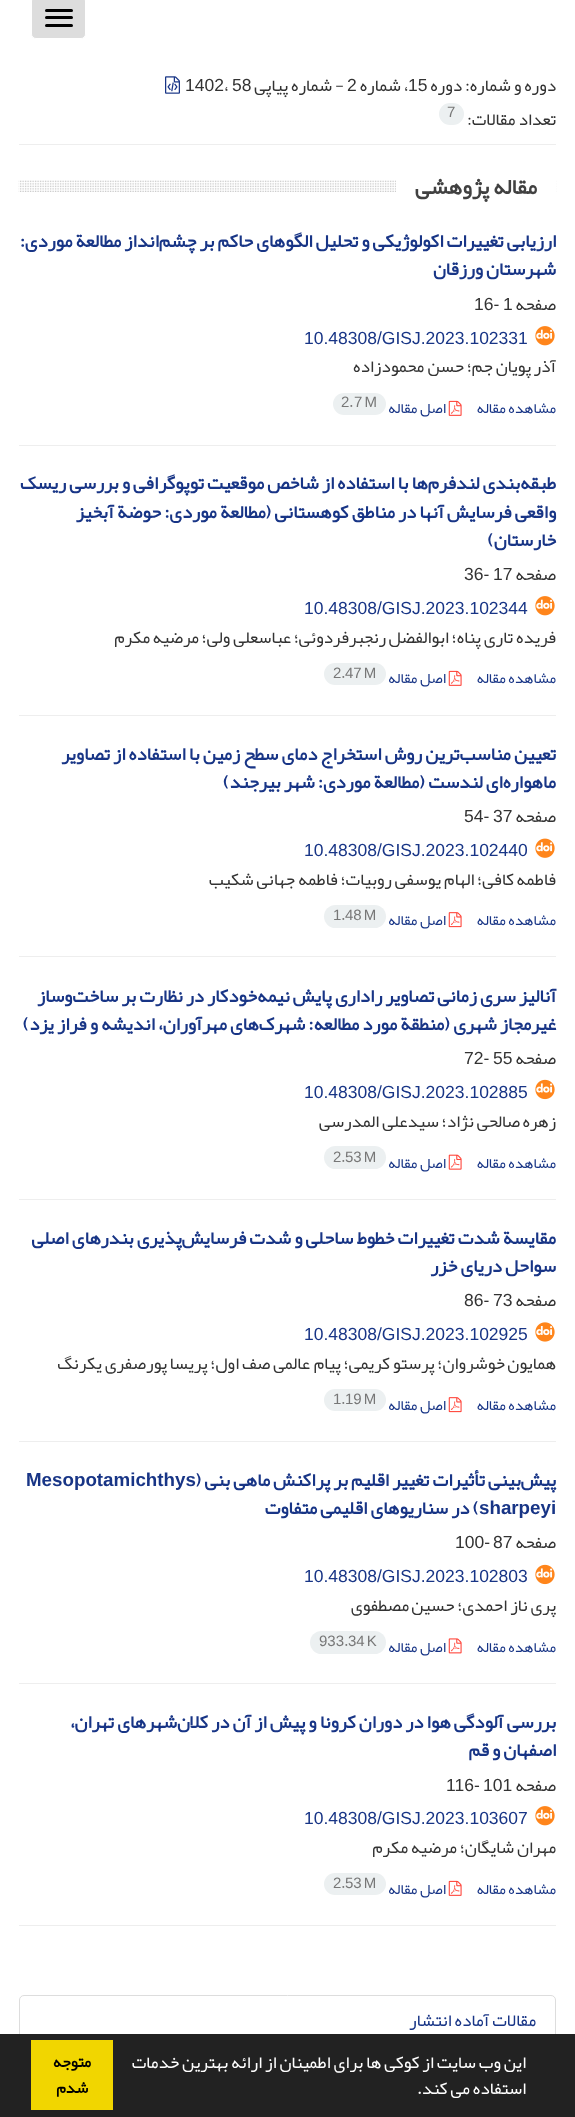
(async () => {
    const canvas = document.querySelector("canvas");
    canvas.width = 575;
    canvas.height = 2117;
    const context = canvas.getContext("2d");
    context.miterLimit = 4;
    context.fontKerning = "normal";
    function write(s, x, y, font, color) {
        context.font = font;
        context.fillStyle = color;
        context.fillText(s, x, y);
    }
    function block(x, y, w, h, color) {
        context.fillStyle = color;
        context.fillRect(x, y, w, h);
    }
    function card(x, y, w, h, r, color) {
        context.fillStyle = color;
        context.beginPath();
        context.roundRect(x, y, w, h, r);
        context.fill();
    }
    async function photo(src, x, y, w, h) {
        const img = new Image();
        img.src = src;
        await img.decode();
        context.drawImage(img, x, y, w, h);
    }

    block(0, 0, 575, 2117, "rgb(255, 255, 255)");
    context.fillStyle = "rgb(221, 221, 221)";
    context.beginPath();
    context.roundRect(31.5, -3.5, 54, 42, 4.5);
    context.fill();
    context.strokeStyle = "rgb(255, 255, 255)";
    context.stroke();
    card(45, 9, 28, 3, 1.5, "rgb(0, 0, 0)");
    card(45, 16, 28, 3, 1.5, "rgb(0, 0, 0)");
    card(45, 24, 28, 3, 1.5, "rgb(0, 0, 0)");
    context.direction = "rtl";
    write("دوره و شماره:", 556, 91, "17.5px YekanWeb", "rgb(51, 51, 51)");
    write("دوره", 462, 91, "17.5px YekanWeb", "rgb(51, 51, 51)");
    context.direction = "ltr";
    write("15", 408, 91, "17.5px Liberation Sans", "rgb(51, 51, 51)");
    context.direction = "rtl";
    write("، شماره", 408, 91, "17.5px YekanWeb", "rgb(51, 51, 51)");
    context.direction = "ltr";
    write("2", 347, 91, "17.5px Liberation Sans", "rgb(51, 51, 51)");
    context.direction = "rtl";
    write("- شماره پیاپی", 344, 91, "17.5px YekanWeb", "rgb(51, 51, 51)");
    context.direction = "ltr";
    write("58", 232, 91, "17.5px Liberation Sans", "rgb(51, 51, 51)");
    write("،", 224, 91, "17.5px YekanWeb", "rgb(51, 51, 51)");
    write("1402", 185, 91, "17.5px Liberation Sans", "rgb(51, 51, 51)");
    await photo("media/1.png", 165, 76, 15, 18);
    block(19, 144, 537, 1, "rgb(238, 238, 238)");
    card(439, 103, 25, 22, 11, "rgb(236, 240, 241)");
    write("7", 447, 117, "15px Liberation Sans", "rgb(119, 119, 119)");
    context.direction = "rtl";
    write("تعداد مقالات:", 556, 125, "17.5px YekanWeb", "rgb(51, 51, 51)");
    await photo("media/2.png", 18, 180, 539, 12);
    block(396, 180, 160, 12, "rgb(255, 255, 255)");
    write("مقاله پژوهشی", 537, 194, "bold 22.5px YekanWeb", "rgb(65, 65, 65)");
    write("ارزیابی تغییرات اکولوژیکی و تحلیل الگو‌های حاکم بر چشم‌انداز مطالعة موردی:", 556, 247, "bold 18.75px YekanWeb", "rgb(24, 53, 134)");
    write("شهرستان ورزقان", 556, 275, "bold 18.75px YekanWeb", "rgb(24, 53, 134)");
    write("صفحه", 556, 310, "17.5px YekanWeb", "rgb(51, 51, 51)");
    context.direction = "ltr";
    write("1", 503, 310, "17.5px Liberation Sans", "rgb(51, 51, 51)");
    write("16-", 474, 310, "17.5px Liberation Sans", "rgb(51, 51, 51)");
    await photo("media/3.png", 535, 326, 20, 20);
    write("10.48308/GISJ.2023.102331", 304, 344, "17.5px Liberation Sans", "rgb(24, 53, 134)");
    context.direction = "rtl";
    write("آذر", 556, 372, "17.5px YekanWeb", "rgb(51, 51, 51)");
    write("پویان جم؛ حسن", 531, 372, "17.5px YekanWeb", "rgb(51, 51, 51)");
    write("محمودزاده", 424, 372, "17.5px YekanWeb", "rgb(51, 51, 51)");
    write("مشاهده مقاله", 556, 413, "15px YekanWeb", "rgb(24, 53, 134)");
    await photo("media/4.png", 448, 400, 14, 16);
    write("اصل مقاله", 446, 413, "15px YekanWeb", "rgb(24, 53, 134)");
    card(333, 393, 53, 22, 11, "rgb(236, 240, 241)");
    context.wordSpacing = "-2px";
    context.direction = "ltr";
    write("7 M", 354, 407, "15px Liberation Sans", "rgb(119, 119, 119)");
    context.wordSpacing = "0px";
    write(".", 349, 407, "15px YekanWeb", "rgb(119, 119, 119)");
    write("2", 341, 407, "15px Liberation Sans", "rgb(119, 119, 119)");
    block(19, 445, 537, 1, "rgb(238, 238, 238)");
    context.direction = "rtl";
    write("طبقه‌بندی لندفرم‌ها با استفاده از شاخص موقعیت توپوگرافی و بررسی ریسک", 556, 489, "bold 18.75px YekanWeb", "rgb(24, 53, 134)");
    write("واقعی فرسایش آنها در مناطق کوهستانی (مطالعة موردی: حوضة آبخیز", 556, 518, "bold 18.75px YekanWeb", "rgb(24, 53, 134)");
    write("خارستان)", 556, 546, "bold 18.75px YekanWeb", "rgb(24, 53, 134)");
    write("صفحه", 556, 580, "17.5px YekanWeb", "rgb(51, 51, 51)");
    context.direction = "ltr";
    write("17", 493, 580, "17.5px Liberation Sans", "rgb(51, 51, 51)");
    write("36-", 464, 580, "17.5px Liberation Sans", "rgb(51, 51, 51)");
    await photo("media/3.png", 535, 596, 20, 20);
    write("10.48308/GISJ.2023.102344", 304, 614, "17.5px Liberation Sans", "rgb(24, 53, 134)");
    context.direction = "rtl";
    write("فریده", 556, 643, "17.5px YekanWeb", "rgb(51, 51, 51)");
    write("تاری پناه؛ ابوالفضل", 513, 643, "17.5px YekanWeb", "rgb(51, 51, 51)");
    write("رنجبرفردوئی؛ عباسعلی", 386, 643, "17.5px YekanWeb", "rgb(51, 51, 51)");
    write("ولی؛ مرضیه", 230, 643, "17.5px YekanWeb", "rgb(51, 51, 51)");
    write("مکرم", 150, 643, "17.5px YekanWeb", "rgb(51, 51, 51)");
    write("مشاهده مقاله", 556, 683, "15px YekanWeb", "rgb(24, 53, 134)");
    await photo("media/4.png", 448, 670, 14, 16);
    write("اصل مقاله", 446, 683, "15px YekanWeb", "rgb(24, 53, 134)");
    card(324, 663, 62, 22, 11, "rgb(236, 240, 241)");
    context.wordSpacing = "-2px";
    context.direction = "ltr";
    write("47 M", 345, 678, "15px Liberation Sans", "rgb(119, 119, 119)");
    context.wordSpacing = "0px";
    write(".", 341, 678, "15px YekanWeb", "rgb(119, 119, 119)");
    write("2", 333, 678, "15px Liberation Sans", "rgb(119, 119, 119)");
    block(19, 715, 537, 1, "rgb(238, 238, 238)");
    context.direction = "rtl";
    write("تعیین مناسب‌ترین روش استخراج دمای سطح زمین با استفاده از تصاویر", 556, 760, "bold 18.75px YekanWeb", "rgb(24, 53, 134)");
    write("ماهواره‌ای لندست (مطالعة موردی: شهر بیرجند)", 556, 788, "bold 18.75px YekanWeb", "rgb(24, 53, 134)");
    write("صفحه", 556, 822, "17.5px YekanWeb", "rgb(51, 51, 51)");
    context.direction = "ltr";
    write("37", 493, 822, "17.5px Liberation Sans", "rgb(51, 51, 51)");
    write("54-", 464, 822, "17.5px Liberation Sans", "rgb(51, 51, 51)");
    await photo("media/5.png", 535, 838, 20, 20);
    write("10.48308/GISJ.2023.102440", 304, 856, "17.5px Liberation Sans", "rgb(24, 53, 134)");
    context.direction = "rtl";
    write("فاطمه", 556, 885, "17.5px YekanWeb", "rgb(51, 51, 51)");
    write("کافی؛ الهام", 514, 885, "17.5px YekanWeb", "rgb(51, 51, 51)");
    write("یوسفی روبیات؛ فاطمه", 441, 885, "17.5px YekanWeb", "rgb(51, 51, 51)");
    write("جهانی شکیب", 295, 885, "17.5px YekanWeb", "rgb(51, 51, 51)");
    write("مشاهده مقاله", 556, 925, "15px YekanWeb", "rgb(24, 53, 134)");
    await photo("media/6.png", 448, 912, 14, 16);
    write("اصل مقاله", 446, 925, "15px YekanWeb", "rgb(24, 53, 134)");
    card(324, 905, 62, 23, 11.5, "rgb(236, 240, 241)");
    context.wordSpacing = "-2px";
    context.direction = "ltr";
    write("48 M", 345, 920, "15px Liberation Sans", "rgb(119, 119, 119)");
    context.wordSpacing = "0px";
    write(".", 341, 920, "15px YekanWeb", "rgb(119, 119, 119)");
    write("1", 333, 920, "15px Liberation Sans", "rgb(119, 119, 119)");
    block(19, 956, 537, 1, "rgb(238, 238, 238)");
    context.direction = "rtl";
    write("آنالیز سری زمانی تصاویر راداری پایش نیمه‌خودکار در نظارت بر ساخت‌وساز", 556, 1002, "bold 18.75px YekanWeb", "rgb(24, 53, 134)");
    write("غیرمجاز شهری (منطقة مورد مطالعه: شهرک‌های مهرآوران، اندیشه و فراز یزد)", 556, 1030, "bold 18.75px YekanWeb", "rgb(24, 53, 134)");
    write("صفحه", 556, 1064, "17.5px YekanWeb", "rgb(51, 51, 51)");
    context.direction = "ltr";
    write("55", 493, 1064, "17.5px Liberation Sans", "rgb(51, 51, 51)");
    write("72-", 464, 1064, "17.5px Liberation Sans", "rgb(51, 51, 51)");
    await photo("media/7.png", 535, 1079, 20, 21);
    write("10.48308/GISJ.2023.102885", 304, 1098, "17.5px Liberation Sans", "rgb(24, 53, 134)");
    context.direction = "rtl";
    write("زهره", 556, 1127, "17.5px YekanWeb", "rgb(51, 51, 51)");
    write("صالحی نژاد؛ سیدعلی", 520, 1127, "17.5px YekanWeb", "rgb(51, 51, 51)");
    write("المدرسی", 379, 1127, "17.5px YekanWeb", "rgb(51, 51, 51)");
    write("مشاهده مقاله", 556, 1168, "15px YekanWeb", "rgb(24, 53, 134)");
    await photo("media/8.png", 448, 1154, 14, 16);
    write("اصل مقاله", 446, 1168, "15px YekanWeb", "rgb(24, 53, 134)");
    card(324, 1146, 62, 23, 11.5, "rgb(236, 240, 241)");
    context.wordSpacing = "-2px";
    context.direction = "ltr";
    write("53 M", 345, 1162, "15px Liberation Sans", "rgb(119, 119, 119)");
    context.wordSpacing = "0px";
    write(".", 341, 1162, "15px YekanWeb", "rgb(119, 119, 119)");
    write("2", 333, 1162, "15px Liberation Sans", "rgb(119, 119, 119)");
    block(19, 1199, 537, 1, "rgb(238, 238, 238)");
    context.direction = "rtl";
    write("مقایسة شدت تغییرات خطوط ساحلی و شدت فرسایش‌پذیری بندرهای اصلی", 556, 1244, "bold 18.75px YekanWeb", "rgb(24, 53, 134)");
    write("سواحل دریای خزر", 556, 1272, "bold 18.75px YekanWeb", "rgb(24, 53, 134)");
    write("صفحه", 556, 1306, "17.5px YekanWeb", "rgb(51, 51, 51)");
    context.direction = "ltr";
    write("73", 493, 1306, "17.5px Liberation Sans", "rgb(51, 51, 51)");
    write("86-", 464, 1306, "17.5px Liberation Sans", "rgb(51, 51, 51)");
    await photo("media/9.png", 535, 1322, 20, 20);
    write("10.48308/GISJ.2023.102925", 304, 1340, "17.5px Liberation Sans", "rgb(24, 53, 134)");
    context.direction = "rtl";
    write("همایون", 556, 1369, "17.5px YekanWeb", "rgb(51, 51, 51)");
    write("خوشروان؛ پرستو", 505, 1369, "17.5px YekanWeb", "rgb(51, 51, 51)");
    write("کریمی؛ پیام", 390, 1369, "17.5px YekanWeb", "rgb(51, 51, 51)");
    write("عالمی صف اول؛ پریسا", 310, 1369, "17.5px YekanWeb", "rgb(51, 51, 51)");
    write("پورصفری یکرنگ", 167, 1369, "17.5px YekanWeb", "rgb(51, 51, 51)");
    write("مشاهده مقاله", 556, 1410, "15px YekanWeb", "rgb(24, 53, 134)");
    await photo("media/6.png", 448, 1397, 14, 16);
    write("اصل مقاله", 446, 1410, "15px YekanWeb", "rgb(24, 53, 134)");
    card(324, 1389, 62, 22, 11, "rgb(236, 240, 241)");
    context.wordSpacing = "-2px";
    context.direction = "ltr";
    write("19 M", 345, 1404, "15px Liberation Sans", "rgb(119, 119, 119)");
    context.wordSpacing = "0px";
    write(".", 341, 1404, "15px YekanWeb", "rgb(119, 119, 119)");
    write("1", 333, 1404, "15px Liberation Sans", "rgb(119, 119, 119)");
    block(19, 1441, 537, 1, "rgb(238, 238, 238)");
    context.direction = "rtl";
    write("پیش‌بینی تأثیرات تغییر اقلیم بر پراکنش ماهی بنی (", 556, 1486, "bold 18.75px YekanWeb", "rgb(24, 53, 134)");
    context.direction = "ltr";
    write("Mesopotamichthys", 26, 1486, "bold 18.75px Liberation Sans", "rgb(24, 53, 134)");
    write("sharpeyi", 479, 1514, "bold 18.75px Liberation Sans", "rgb(24, 53, 134)");
    context.direction = "rtl";
    write(") در سناریوهای اقلیمی متفاوت", 479, 1514, "bold 18.75px YekanWeb", "rgb(24, 53, 134)");
    write("صفحه", 556, 1548, "17.5px YekanWeb", "rgb(51, 51, 51)");
    context.direction = "ltr";
    write("87", 493, 1548, "17.5px Liberation Sans", "rgb(51, 51, 51)");
    write("100-", 455, 1548, "17.5px Liberation Sans", "rgb(51, 51, 51)");
    await photo("media/7.png", 535, 1564, 20, 21);
    write("10.48308/GISJ.2023.102803", 304, 1582, "17.5px Liberation Sans", "rgb(24, 53, 134)");
    context.direction = "rtl";
    write("پری ناز", 556, 1611, "17.5px YekanWeb", "rgb(51, 51, 51)");
    write("احمدی؛ حسین", 507, 1611, "17.5px YekanWeb", "rgb(51, 51, 51)");
    write("مصطفوی", 409, 1611, "17.5px YekanWeb", "rgb(51, 51, 51)");
    write("مشاهده مقاله", 556, 1652, "15px YekanWeb", "rgb(24, 53, 134)");
    await photo("media/10.png", 448, 1638, 14, 16);
    write("اصل مقاله", 446, 1652, "15px YekanWeb", "rgb(24, 53, 134)");
    card(310, 1631, 76, 23, 11.5, "rgb(236, 240, 241)");
    context.wordSpacing = "-2px";
    context.direction = "ltr";
    write("34 K", 348, 1646, "15px Liberation Sans", "rgb(119, 119, 119)");
    context.wordSpacing = "0px";
    write(".", 344, 1646, "15px YekanWeb", "rgb(119, 119, 119)");
    write("933", 319, 1646, "15px Liberation Sans", "rgb(119, 119, 119)");
    block(19, 1683, 537, 1, "rgb(238, 238, 238)");
    context.direction = "rtl";
    write("بررسی آلودگی هوا در دوران کرونا و پیش از آن در کلان‌شهرهای تهران،", 556, 1728, "bold 18.75px YekanWeb", "rgb(24, 53, 134)");
    write("اصفهان و قم", 556, 1756, "bold 18.75px YekanWeb", "rgb(24, 53, 134)");
    write("صفحه", 556, 1791, "17.5px YekanWeb", "rgb(51, 51, 51)");
    context.direction = "ltr";
    write("101", 483, 1791, "17.5px Liberation Sans", "rgb(51, 51, 51)");
    write("116-", 446, 1791, "17.5px Liberation Sans", "rgb(51, 51, 51)");
    await photo("media/3.png", 535, 1806, 20, 20);
    write("10.48308/GISJ.2023.103607", 304, 1824, "17.5px Liberation Sans", "rgb(24, 53, 134)");
    context.direction = "rtl";
    write("مهران", 556, 1853, "17.5px YekanWeb", "rgb(51, 51, 51)");
    write("شایگان؛ مرضیه", 514, 1853, "17.5px YekanWeb", "rgb(51, 51, 51)");
    write("مکرم", 408, 1853, "17.5px YekanWeb", "rgb(51, 51, 51)");
    write("مشاهده مقاله", 556, 1894, "15px YekanWeb", "rgb(24, 53, 134)");
    await photo("media/4.png", 448, 1880, 14, 16);
    write("اصل مقاله", 446, 1894, "15px YekanWeb", "rgb(24, 53, 134)");
    card(324, 1873, 62, 22, 11, "rgb(236, 240, 241)");
    context.wordSpacing = "-2px";
    context.direction = "ltr";
    write("53 M", 345, 1888, "15px Liberation Sans", "rgb(119, 119, 119)");
    context.wordSpacing = "0px";
    write(".", 341, 1888, "15px YekanWeb", "rgb(119, 119, 119)");
    write("2", 333, 1888, "15px Liberation Sans", "rgb(119, 119, 119)");
    block(19, 1925, 537, 1, "rgb(238, 238, 238)");
    context.beginPath();
    context.roundRect(19.5, 1995.5, 536, 52, [4.5, 4.5, 0, 0]);
    context.strokeStyle = "rgb(221, 221, 221)";
    context.stroke();
    context.direction = "rtl";
    write("مقالات آماده انتشار", 536, 2026, "17.5px YekanWeb", "rgb(24, 53, 134)");
    block(0, 2034, 575, 83, "rgb(34, 34, 34)");
    write("این وب سایت از کوکی ها برای اطمینان از ارائه بهترین خدمات", 526, 2068, "17.5px YekanWeb", "rgb(255, 255, 255)");
    write("استفاده می کند.", 526, 2094, "17.5px YekanWeb", "rgb(255, 255, 255)");
    block(31, 2040, 82, 70, "rgb(241, 214, 0)");
    write("متوجه", 91, 2067, "bold 16px YekanWeb", "rgb(0, 0, 0)");
    write("شدم", 88, 2093, "bold 16px YekanWeb", "rgb(0, 0, 0)");
})();
